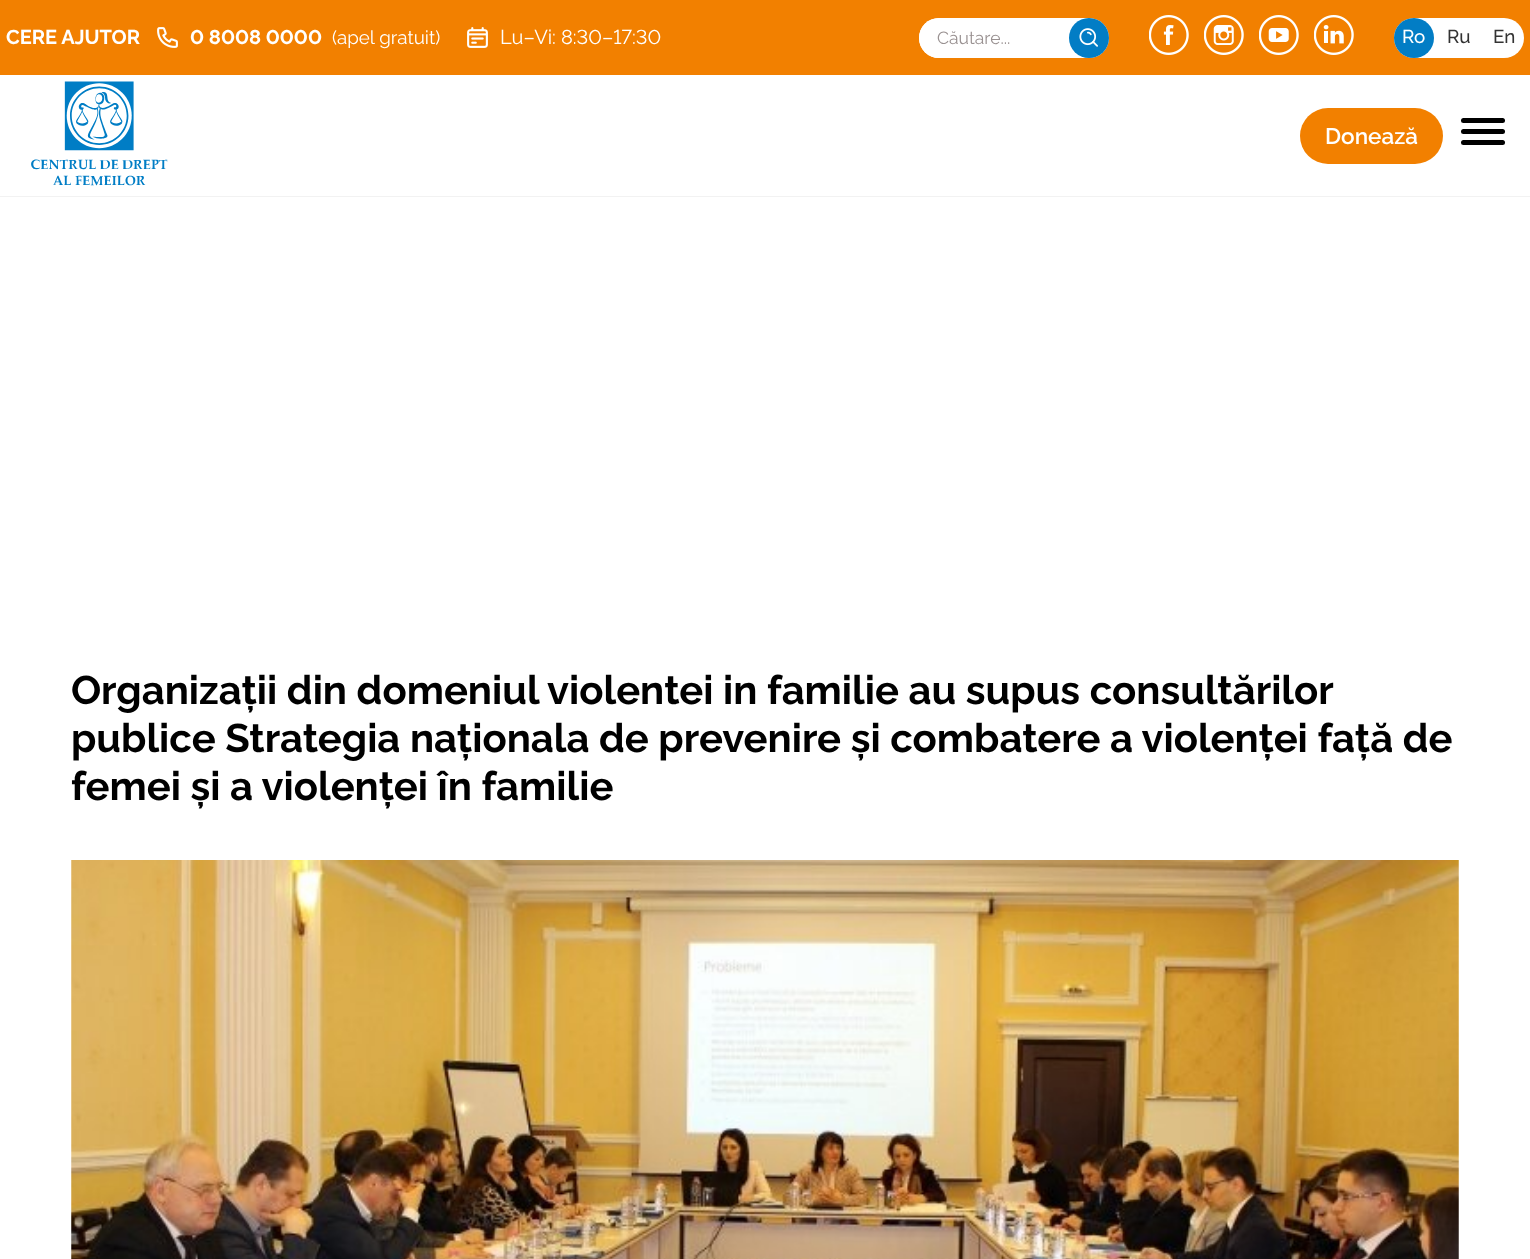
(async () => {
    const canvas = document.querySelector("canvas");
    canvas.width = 1530;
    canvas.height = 1259;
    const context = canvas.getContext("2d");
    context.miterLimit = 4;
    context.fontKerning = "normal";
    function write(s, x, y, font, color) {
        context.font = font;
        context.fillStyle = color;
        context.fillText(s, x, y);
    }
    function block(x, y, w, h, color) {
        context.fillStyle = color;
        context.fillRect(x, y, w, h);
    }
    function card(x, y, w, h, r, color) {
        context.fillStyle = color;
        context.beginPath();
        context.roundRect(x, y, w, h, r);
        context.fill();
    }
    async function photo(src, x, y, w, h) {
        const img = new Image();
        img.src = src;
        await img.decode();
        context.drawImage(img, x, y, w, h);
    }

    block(0, 0, 1530, 1259, "rgb(255, 255, 255)");
    block(0, 0, 1530, 75, "rgb(242, 128, 0)");
    write("CERE AJUTOR", 6, 44, "bold 20px Raleway", "rgb(255, 255, 255)");
    await photo("media/1.png", 157, 27, 21, 21);
    write("0 8008 0000", 190, 44, "bold 20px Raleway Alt", "rgb(255, 255, 255)");
    write("(apel gratuit)", 332, 44, "18.75px Raleway", "rgb(255, 255, 255)");
    await photo("media/2.png", 467, 27, 21, 21);
    write("Lu–Vi: 8:30–17:30", 500, 44, "20px Raleway Alt", "rgb(255, 255, 255)");
    card(919, 18, 190, 40, 20, "rgb(255, 255, 255)");
    card(919, 18, 150, 40, 20, "rgb(255, 255, 255)");
    write("Căutare...", 937, 44, "17.5px Raleway", "rgb(153, 145, 145)");
    context.fillStyle = "rgb(2, 125, 197)";
    context.beginPath();
    context.arc(1089, 38, 20, 0, Math.PI * 2);
    context.fill();
    await photo("media/3.png", 1079, 28, 19, 19);
    await photo("media/4.png", 1149, 15, 40, 40);
    await photo("media/5.png", 1204, 15, 40, 40);
    await photo("media/6.png", 1259, 15, 40, 40);
    await photo("media/7.png", 1314, 15, 40, 40);
    card(1394, 18, 130, 40, 20, "rgb(255, 255, 255)");
    context.fillStyle = "rgb(2, 125, 197)";
    context.beginPath();
    context.arc(1414, 38, 20, 0, Math.PI * 2);
    context.fill();
    write("Ro", 1402, 43, "500 18.75px Raleway", "rgb(255, 255, 255)");
    write("Ru", 1447, 43, "500 18.75px Raleway", "rgb(51, 51, 51)");
    write("En", 1493, 43, "500 18.75px Raleway", "rgb(51, 51, 51)");
    block(0, 196, 1530, 1, "rgb(242, 242, 242)");
    await photo("media/8.png", 31, 81, 137, 105);
    card(1300, 108, 143, 56, 28, "rgb(242, 128, 0)");
    write("Donează", 1325, 144, "600 22.5px Raleway", "rgb(255, 255, 255)");
    card(1461, 118, 44, 5, 2.5, "rgb(0, 0, 0)");
    card(1461, 129, 44, 5, 2.5, "rgb(0, 0, 0)");
    card(1461, 140, 44, 5, 2.5, "rgb(0, 0, 0)");
    write("Organizații din domeniul violentei in familie au supus consultărilor", 71, 704, "bold 40px Raleway", "rgb(0, 0, 0)");
    write("publice Strategia naționala de prevenire și combatere a violenței față de", 71, 752, "bold 40px Raleway", "rgb(0, 0, 0)");
    write("femei și a violenței în familie", 71, 800, "bold 40px Raleway", "rgb(0, 0, 0)");
    await photo("media/9.png", 71, 860, 1388, 399);
})();
